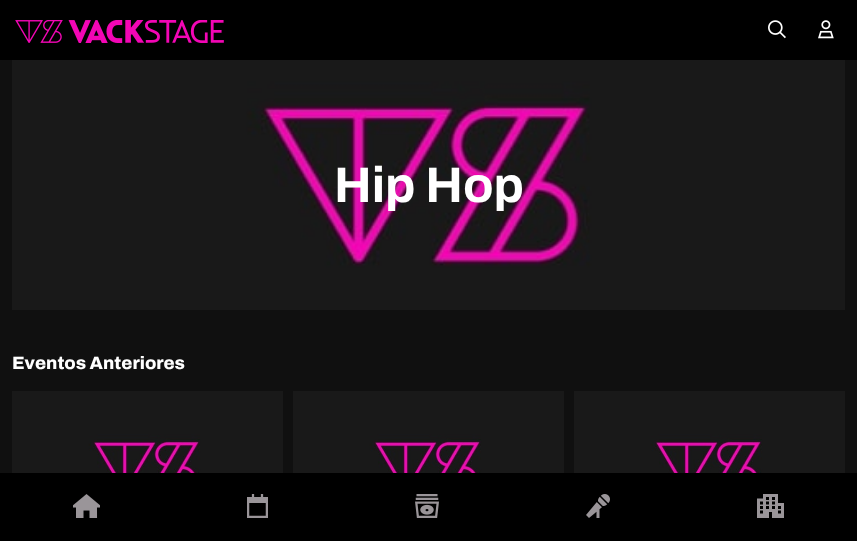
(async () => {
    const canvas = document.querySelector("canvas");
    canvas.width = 857;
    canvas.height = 541;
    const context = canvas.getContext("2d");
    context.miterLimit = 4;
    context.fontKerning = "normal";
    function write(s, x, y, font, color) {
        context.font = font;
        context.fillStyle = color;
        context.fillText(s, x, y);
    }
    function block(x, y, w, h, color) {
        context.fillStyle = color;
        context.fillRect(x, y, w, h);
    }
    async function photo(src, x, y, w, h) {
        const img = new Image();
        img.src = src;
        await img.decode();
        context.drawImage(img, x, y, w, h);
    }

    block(0, 0, 857, 541, "rgb(16, 16, 16)");
    block(0, 0, 857, 60, "rgb(0, 0, 0)");
    await photo("media/1.png", 15, 20, 209, 23);
    await photo("media/2.png", 768, 20, 18, 19);
    await photo("media/3.png", 818, 20, 16, 19);
    await photo("media/4.png", 12, 60, 833, 250);
    write("Hip Hop", 334, 202, "bold 50px Archivo", "rgb(255, 255, 255)");
    write("Eventos Anteriores", 12, 369, "800 18px Archivo", "rgb(255, 255, 255)");
    await photo("media/5.png", 12, 391, 271, 82);
    await photo("media/6.png", 293, 391, 271, 82);
    await photo("media/5.png", 574, 391, 271, 82);
    block(0, 473, 857, 68, "rgb(0, 0, 0)");
    await photo("media/7.png", 73, 494, 27, 24);
    await photo("media/8.png", 247, 494, 21, 24);
    await photo("media/9.png", 415, 494, 24, 24);
    await photo("media/10.png", 586, 494, 24, 24);
    await photo("media/11.png", 757, 494, 27, 24);
})();
